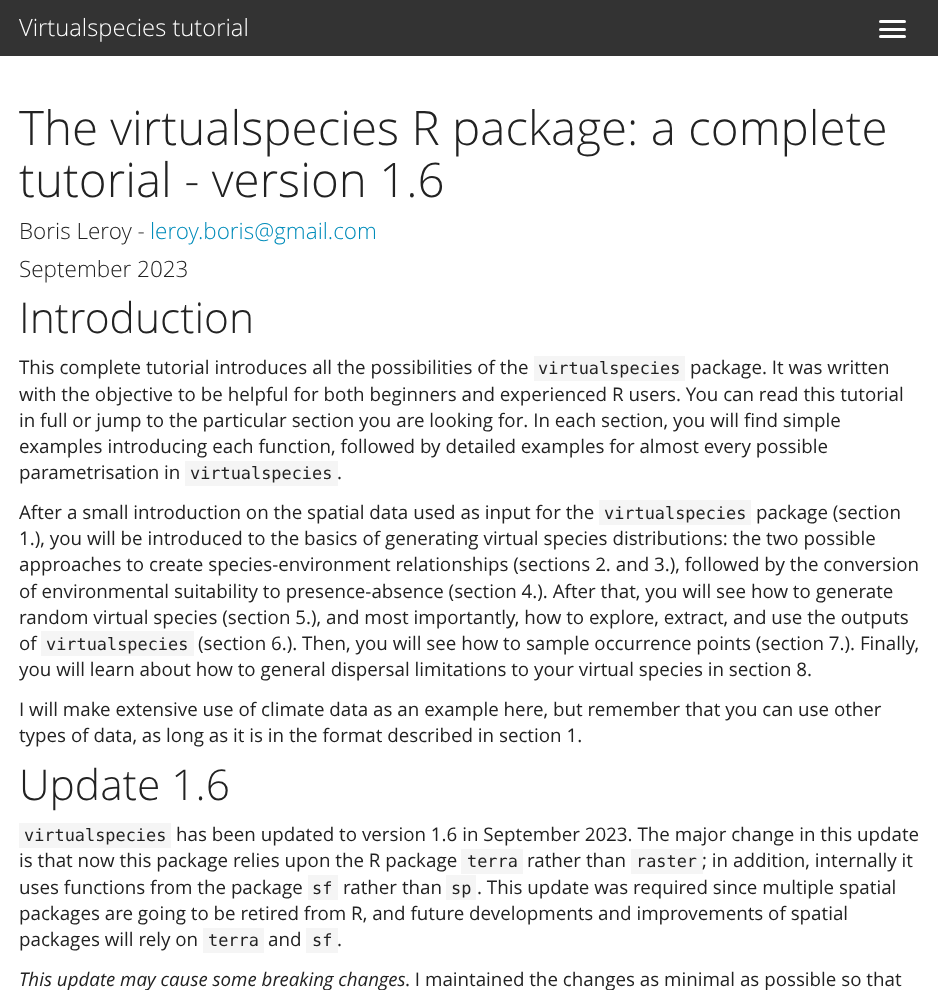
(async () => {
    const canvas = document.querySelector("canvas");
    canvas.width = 938;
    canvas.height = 990;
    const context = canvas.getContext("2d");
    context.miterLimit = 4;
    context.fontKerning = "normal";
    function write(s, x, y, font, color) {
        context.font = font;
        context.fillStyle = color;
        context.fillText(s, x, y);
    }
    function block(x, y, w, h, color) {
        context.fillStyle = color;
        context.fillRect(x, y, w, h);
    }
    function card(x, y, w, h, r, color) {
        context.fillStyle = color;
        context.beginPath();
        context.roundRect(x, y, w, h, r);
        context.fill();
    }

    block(0, 0, 938, 990, "rgb(255, 255, 255)");
    block(0, 0, 938, 56, "rgb(51, 51, 51)");
    write("Virtualspecies tutorial", 19, 36, "300 23.75px Open Sans", "rgb(255, 255, 255)");
    card(879, 20, 27, 3, 1.5, "rgb(255, 255, 255)");
    card(879, 28, 27, 3, 1.5, "rgb(255, 255, 255)");
    card(879, 35, 27, 3, 1.5, "rgb(255, 255, 255)");
    write("The virtualspecies R package: a complete", 19, 145, "300 47.5px Open Sans", "rgb(34, 34, 34)");
    write("tutorial - version 1.6", 19, 197, "300 47.5px Open Sans", "rgb(34, 34, 34)");
    write("Boris Leroy -", 19, 239, "300 22.5px Open Sans", "rgb(34, 34, 34)");
    write("leroy.boris@gmail.com", 150, 239, "300 22.5px Open Sans", "rgb(0, 140, 186)");
    write("September 2023", 19, 277, "300 22.5px Open Sans", "rgb(34, 34, 34)");
    write("Introduction", 19, 333, "300 42.5px Open Sans", "rgb(34, 34, 34)");
    write("This complete tutorial introduces all the possibilities of the", 19, 374, "18.75px Open Sans", "rgb(34, 34, 34)");
    block(534, 356, 151, 25, "rgb(245, 245, 245)");
    write("virtualspecies", 538, 374, "16.9px DejaVu Sans Mono", "rgb(34, 34, 34)");
    write("package. It was written", 690, 374, "18.75px Open Sans", "rgb(34, 34, 34)");
    write("with the objective to be helpful for both beginners and experienced R users. You can read this tutorial", 19, 401, "18.75px Open Sans", "rgb(34, 34, 34)");
    write("in full or jump to the particular section you are looking for. In each section, you will find simple", 19, 427, "18.75px Open Sans", "rgb(34, 34, 34)");
    write("examples introducing each function, followed by detailed examples for almost every possible", 19, 453, "18.75px Open Sans", "rgb(34, 34, 34)");
    write("parametrisation in", 19, 479, "18.75px Open Sans", "rgb(34, 34, 34)");
    block(185, 461, 153, 25, "rgb(245, 245, 245)");
    write("virtualspecies", 190, 479, "16.9px DejaVu Sans Mono", "rgb(34, 34, 34)");
    write(".", 337, 479, "18.75px Open Sans", "rgb(34, 34, 34)");
    write("After a small introduction on the spatial data used as input for the", 19, 519, "18.75px Open Sans", "rgb(34, 34, 34)");
    block(599, 500, 152, 25, "rgb(245, 245, 245)");
    write("virtualspecies", 604, 519, "16.9px DejaVu Sans Mono", "rgb(34, 34, 34)");
    write("package (section", 756, 519, "18.75px Open Sans", "rgb(34, 34, 34)");
    write("1.), you will be introduced to the basics of generating virtual species distributions: the two possible", 19, 545, "18.75px Open Sans", "rgb(34, 34, 34)");
    write("approaches to create species-environment relationships (sections 2. and 3.), followed by the conversion", 19, 571, "18.75px Open Sans", "rgb(34, 34, 34)");
    write("of environmental suitability to presence-absence (section 4.). After that, you will see how to generate", 19, 598, "18.75px Open Sans", "rgb(34, 34, 34)");
    write("random virtual species (section 5.), and most importantly, how to explore, extract, and use the outputs", 19, 624, "18.75px Open Sans", "rgb(34, 34, 34)");
    write("of", 19, 650, "18.75px Open Sans", "rgb(34, 34, 34)");
    block(41, 631, 153, 25, "rgb(245, 245, 245)");
    write("virtualspecies", 46, 650, "16.9px DejaVu Sans Mono", "rgb(34, 34, 34)");
    write("(section 6.). Then, you will see how to sample occurrence points (section 7.). Finally,", 198, 650, "18.75px Open Sans", "rgb(34, 34, 34)");
    write("you will learn about how to general dispersal limitations to your virtual species in section 8.", 19, 676, "18.75px Open Sans", "rgb(34, 34, 34)");
    write("I will make extensive use of climate data as an example here, but remember that you can use other", 19, 716, "18.75px Open Sans", "rgb(34, 34, 34)");
    write("types of data, as long as it is in the format described in section 1.", 19, 742, "18.75px Open Sans", "rgb(34, 34, 34)");
    write("Update 1.6", 19, 800, "300 42.5px Open Sans", "rgb(34, 34, 34)");
    block(19, 823, 152, 25, "rgb(245, 245, 245)");
    write("virtualspecies", 24, 841, "16.9px DejaVu Sans Mono", "rgb(34, 34, 34)");
    write("has been updated to version 1.6 in September 2023. The major change in this update", 176, 841, "18.75px Open Sans", "rgb(34, 34, 34)");
    write("is that now this package relies upon the R package", 19, 867, "18.75px Open Sans", "rgb(34, 34, 34)");
    block(461, 849, 62, 25, "rgb(245, 245, 245)");
    write("terra", 467, 867, "16.9px DejaVu Sans Mono", "rgb(34, 34, 34)");
    write("rather than", 527, 867, "18.75px Open Sans", "rgb(34, 34, 34)");
    block(631, 849, 72, 25, "rgb(245, 245, 245)");
    write("raster", 636, 867, "16.9px DejaVu Sans Mono", "rgb(34, 34, 34)");
    write("; in addition, internally it", 702, 867, "18.75px Open Sans", "rgb(34, 34, 34)");
    write("uses functions from the package", 19, 894, "18.75px Open Sans", "rgb(34, 34, 34)");
    block(308, 875, 30, 25, "rgb(245, 245, 245)");
    write("sf", 312, 894, "16.9px DejaVu Sans Mono", "rgb(34, 34, 34)");
    write("rather than", 343, 894, "18.75px Open Sans", "rgb(34, 34, 34)");
    block(446, 875, 30, 25, "rgb(245, 245, 245)");
    write("sp", 451, 894, "16.9px DejaVu Sans Mono", "rgb(34, 34, 34)");
    write(". This update was required since multiple spatial", 477, 894, "18.75px Open Sans", "rgb(34, 34, 34)");
    write("packages are going to be retired from R, and future developments and improvements of spatial", 19, 920, "18.75px Open Sans", "rgb(34, 34, 34)");
    write("packages will rely on", 19, 946, "18.75px Open Sans", "rgb(34, 34, 34)");
    block(203, 928, 61, 25, "rgb(245, 245, 245)");
    write("terra", 208, 946, "16.9px DejaVu Sans Mono", "rgb(34, 34, 34)");
    write("and", 268, 946, "18.75px Open Sans", "rgb(34, 34, 34)");
    block(306, 928, 32, 25, "rgb(245, 245, 245)");
    write("sf", 312, 946, "16.9px DejaVu Sans Mono", "rgb(34, 34, 34)");
    write(".", 337, 946, "18.75px Open Sans", "rgb(34, 34, 34)");
    write("This update may cause some breaking changes", 19, 986, "italic 18.75px Open Sans", "rgb(34, 34, 34)");
    write(". I maintained the changes as minimal as possible so that", 405, 986, "18.75px Open Sans", "rgb(34, 34, 34)");
})();
